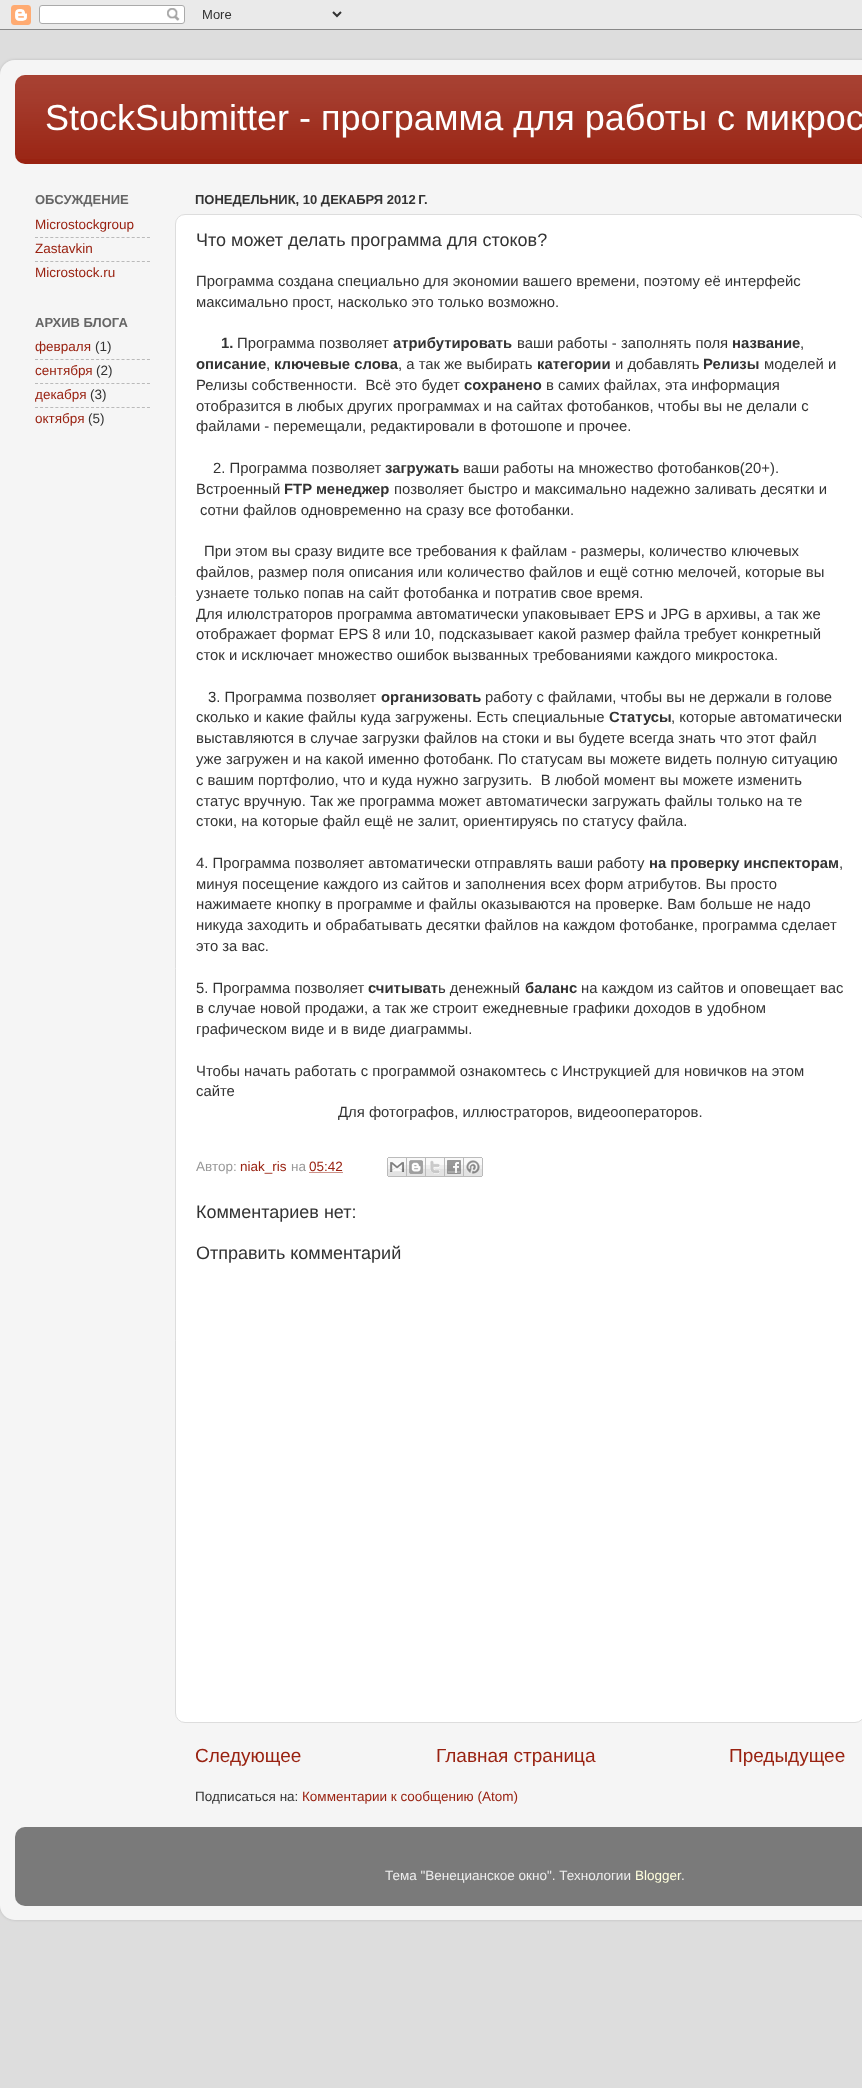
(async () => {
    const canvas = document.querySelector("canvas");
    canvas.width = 862;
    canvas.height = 2088;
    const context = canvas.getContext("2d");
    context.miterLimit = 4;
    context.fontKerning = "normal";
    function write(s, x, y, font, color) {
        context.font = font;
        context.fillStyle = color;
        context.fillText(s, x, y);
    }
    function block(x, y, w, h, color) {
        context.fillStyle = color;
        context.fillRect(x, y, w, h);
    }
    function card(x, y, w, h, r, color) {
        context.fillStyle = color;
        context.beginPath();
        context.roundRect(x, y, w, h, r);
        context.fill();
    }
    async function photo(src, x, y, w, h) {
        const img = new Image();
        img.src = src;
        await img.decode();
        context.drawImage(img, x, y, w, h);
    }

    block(0, 0, 862, 2088, "rgb(221, 221, 221)");
    await photo("media/1.png", 0, 0, 862, 30);
    context.save();
    context.beginPath();
    context.moveTo(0, 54);
    context.lineTo(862, 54);
    context.lineTo(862, 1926);
    context.lineTo(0, 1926);
    context.closePath();
    context.moveTo(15, 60);
    context.lineTo(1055, 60);
    context.bezierCurveTo(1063.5, 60, 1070, 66.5, 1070, 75);
    context.lineTo(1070, 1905);
    context.bezierCurveTo(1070, 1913.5, 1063.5, 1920, 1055, 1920);
    context.lineTo(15, 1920);
    context.bezierCurveTo(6.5, 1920, 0, 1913.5, 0, 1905);
    context.lineTo(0, 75);
    context.bezierCurveTo(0, 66.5, 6.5, 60, 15, 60);
    context.closePath();
    context.clip("evenodd");
    context.fillStyle = "rgba(0, 0, 0, 0.15)";
    context.filter = "blur(1.5px)";
    context.beginPath();
    context.roundRect(0, 60, 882, 1860, 15);
    context.fill();
    context.filter = "none";
    context.restore();
    await photo("media/2.png", 0, 60, 862, 1860);
    card(15, 75, 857, 89, 10, "rgb(153, 34, 17)");
    await photo("media/3.png", 15, 75, 847, 84);
    write("StockSubmitter - программа для работы с микрос", 45, 130, "36px Liberation Sans", "rgb(255, 255, 255)");
    write("ОБСУЖДЕНИЕ", 35, 204, "bold 13px Liberation Sans", "rgb(102, 102, 102)");
    write("Microstockgroup", 35, 229, "13.5px Liberation Sans", "rgb(153, 34, 17)");
    context.beginPath();
    context.moveTo(35, 237.5);
    context.lineTo(150, 237.5);
    context.strokeStyle = "rgb(186, 186, 186)";
    context.setLineDash([3, 2.09]);
    context.stroke();
    write("Zastavkin", 35, 253, "13.5px Liberation Sans", "rgb(153, 34, 17)");
    context.beginPath();
    context.moveTo(35, 261.5);
    context.lineTo(150, 261.5);
    context.stroke();
    write("Microstock.ru", 35, 277, "13.5px Liberation Sans", "rgb(153, 34, 17)");
    write("АРХИВ БЛОГА", 35, 327, "bold 13px Liberation Sans", "rgb(102, 102, 102)");
    write("февраля", 35, 351, "13.5px Liberation Sans", "rgb(153, 34, 17)");
    write("(1)", 95, 351, "13.5px Liberation Sans", "rgb(51, 51, 51)");
    context.beginPath();
    context.moveTo(35, 359.5);
    context.lineTo(150, 359.5);
    context.stroke();
    write("сентября", 35, 375, "13.5px Liberation Sans", "rgb(153, 34, 17)");
    write("(2)", 96, 375, "13.5px Liberation Sans", "rgb(51, 51, 51)");
    context.beginPath();
    context.moveTo(35, 383.5);
    context.lineTo(150, 383.5);
    context.stroke();
    write("декабря", 35, 399, "13.5px Liberation Sans", "rgb(153, 34, 17)");
    write("(3)", 90, 399, "13.5px Liberation Sans", "rgb(51, 51, 51)");
    context.beginPath();
    context.moveTo(35, 407.5);
    context.lineTo(150, 407.5);
    context.stroke();
    write("октября", 35, 423, "13.5px Liberation Sans", "rgb(153, 34, 17)");
    write("(5)", 88, 423, "13.5px Liberation Sans", "rgb(51, 51, 51)");
    write("ПОНЕДЕЛЬНИК, 10 ДЕКАБРЯ 2012 Г.", 195, 204, "bold 13px Liberation Sans", "rgb(51, 51, 51)");
    context.fillStyle = "rgb(255, 255, 255)";
    context.beginPath();
    context.roundRect(175.5, 214.5, 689, 1508, 9.5);
    context.fill();
    context.strokeStyle = "rgb(221, 221, 221)";
    context.setLineDash([]);
    context.stroke();
    write("Что может делать программа для стоков?", 196, 246, "18px Liberation Sans", "rgb(51, 51, 51)");
    write("Программа создана специально для экономии вашего времени, поэтому её интерфейс", 196, 286, "14.85px Liberation Sans", "rgb(51, 51, 51)");
    write("максимально прост, насколько это только возможно.", 196, 307, "14.85px Liberation Sans", "rgb(51, 51, 51)");
    write("1.", 221, 348, "bold 14.85px Liberation Sans", "rgb(51, 51, 51)");
    write("Программа позволяет", 237, 348, "14.85px Liberation Sans", "rgb(51, 51, 51)");
    write("атрибутировать", 393, 348, "bold 14.85px Liberation Sans", "rgb(51, 51, 51)");
    write("ваши работы - заполнять поля", 517, 348, "14.85px Liberation Sans", "rgb(51, 51, 51)");
    write("название", 732, 348, "bold 14.85px Liberation Sans", "rgb(51, 51, 51)");
    write(",", 800, 348, "14.85px Liberation Sans", "rgb(51, 51, 51)");
    write("описание", 196, 369, "bold 14.85px Liberation Sans", "rgb(51, 51, 51)");
    write(",", 266, 369, "14.85px Liberation Sans", "rgb(51, 51, 51)");
    write("ключевые слова", 274, 369, "bold 14.85px Liberation Sans", "rgb(51, 51, 51)");
    write(", а так же выбирать", 398, 369, "14.85px Liberation Sans", "rgb(51, 51, 51)");
    write("категории", 537, 369, "bold 14.85px Liberation Sans", "rgb(51, 51, 51)");
    write("и добавлять", 615, 369, "14.85px Liberation Sans", "rgb(51, 51, 51)");
    write("Релизы", 703, 369, "bold 14.85px Liberation Sans", "rgb(51, 51, 51)");
    write("моделей и", 764, 369, "14.85px Liberation Sans", "rgb(51, 51, 51)");
    write("Релизы собственности.  Всё это будет", 196, 390, "14.85px Liberation Sans", "rgb(51, 51, 51)");
    write("сохранено", 464, 390, "bold 14.85px Liberation Sans", "rgb(51, 51, 51)");
    write("в самих файлах, эта информация", 546, 390, "14.85px Liberation Sans", "rgb(51, 51, 51)");
    write("отобразится в любых других программах и на сайтах фотобанков, чтобы вы не делали с", 196, 411, "14.85px Liberation Sans", "rgb(51, 51, 51)");
    write("файлами - перемещали, редактировали в фотошопе и прочее.", 196, 431, "14.85px Liberation Sans", "rgb(51, 51, 51)");
    write("2. Программа позволяет", 213, 473, "14.85px Liberation Sans", "rgb(51, 51, 51)");
    write("загружать", 385, 473, "bold 14.85px Liberation Sans", "rgb(51, 51, 51)");
    write("ваши работы на множество фотобанков(20+).", 463, 473, "14.85px Liberation Sans", "rgb(51, 51, 51)");
    write("Встроенный", 196, 494, "14.85px Liberation Sans", "rgb(51, 51, 51)");
    write("FTP менеджер", 284, 494, "bold 14.85px Liberation Sans", "rgb(51, 51, 51)");
    write("позволяет быстро и максимально надежно заливать десятки и", 394, 494, "14.85px Liberation Sans", "rgb(51, 51, 51)");
    write("сотни файлов одновременно на сразу все фотобанки.", 200, 515, "14.85px Liberation Sans", "rgb(51, 51, 51)");
    write("При этом вы сразу видите все требования к файлам - размеры, количество ключевых", 204, 556, "14.85px Liberation Sans", "rgb(51, 51, 51)");
    write("файлов, размер поля описания или количество файлов и ещё сотню мелочей, которые вы", 196, 577, "14.85px Liberation Sans", "rgb(51, 51, 51)");
    write("узнаете только попав на сайт фотобанка и потратив свое время.", 196, 598, "14.85px Liberation Sans", "rgb(51, 51, 51)");
    write("Для илюлстраторов программа автоматически упаковывает EPS и JPG в архивы, а так же", 196, 619, "14.85px Liberation Sans", "rgb(51, 51, 51)");
    write("отображает формат EPS 8 или 10, подсказывает какой размер файла требует конкретный", 196, 639, "14.85px Liberation Sans", "rgb(51, 51, 51)");
    write("сток и исключает множество ошибок вызванных требованиями каждого микростока.", 196, 660, "14.85px Liberation Sans", "rgb(51, 51, 51)");
    write("3. Программа позволяет", 208, 702, "14.85px Liberation Sans", "rgb(51, 51, 51)");
    write("организовать", 381, 702, "bold 14.85px Liberation Sans", "rgb(51, 51, 51)");
    write("работу с файлами, чтобы вы не держали в голове", 485, 702, "14.85px Liberation Sans", "rgb(51, 51, 51)");
    write("сколько и какие файлы куда загружены. Есть специальные", 196, 722, "14.85px Liberation Sans", "rgb(51, 51, 51)");
    write("Статусы", 609, 722, "bold 14.85px Liberation Sans", "rgb(51, 51, 51)");
    write(", которые автоматически", 671, 722, "14.85px Liberation Sans", "rgb(51, 51, 51)");
    write("выставляются в случае загрузки файлов на стоки и вы будете всегда знать что этот файл", 196, 743, "14.85px Liberation Sans", "rgb(51, 51, 51)");
    write("уже загружен и на какой именно фотобанк. По статусам вы можете видеть полную ситуацию", 196, 764, "14.85px Liberation Sans", "rgb(51, 51, 51)");
    write("с вашим портфолио, что и куда нужно загрузить.  В любой момент вы можете изменить", 196, 785, "14.85px Liberation Sans", "rgb(51, 51, 51)");
    write("статус вручную. Так же программа может автоматически загружать файлы только на те", 196, 806, "14.85px Liberation Sans", "rgb(51, 51, 51)");
    write("стоки, на которые файл ещё не залит, ориентируясь по статусу файла.", 196, 826, "14.85px Liberation Sans", "rgb(51, 51, 51)");
    write("4. Программа позволяет автоматически отправлять ваши работу", 196, 868, "14.85px Liberation Sans", "rgb(51, 51, 51)");
    write("на проверку инспекторам", 649, 868, "bold 14.85px Liberation Sans", "rgb(51, 51, 51)");
    write(",", 839, 868, "14.85px Liberation Sans", "rgb(51, 51, 51)");
    write("минуя посещение каждого из сайтов и заполнения всех форм атрибутов. Вы просто", 196, 889, "14.85px Liberation Sans", "rgb(51, 51, 51)");
    write("нажимаете кнопку в программе и файлы оказываются на проверке. Вам больше не надо", 196, 909, "14.85px Liberation Sans", "rgb(51, 51, 51)");
    write("никуда заходить и обрабатывать десятки файлов на каждом фотобанке, программа сделает", 196, 930, "14.85px Liberation Sans", "rgb(51, 51, 51)");
    write("это за вас.", 196, 951, "14.85px Liberation Sans", "rgb(51, 51, 51)");
    write("5. Программа позволяет", 196, 993, "14.85px Liberation Sans", "rgb(51, 51, 51)");
    write("считыват", 368, 993, "bold 14.85px Liberation Sans", "rgb(51, 51, 51)");
    write("ь денежный", 438, 993, "14.85px Liberation Sans", "rgb(51, 51, 51)");
    write("баланс", 525, 993, "bold 14.85px Liberation Sans", "rgb(51, 51, 51)");
    write("на каждом из сайтов и оповещает вас", 581, 993, "14.85px Liberation Sans", "rgb(51, 51, 51)");
    write("в случае новой продажи, а так же строит ежедневные графики доходов в удобном", 196, 1013, "14.85px Liberation Sans", "rgb(51, 51, 51)");
    write("графическом виде и в виде диаграммы.", 196, 1034, "14.85px Liberation Sans", "rgb(51, 51, 51)");
    write("Чтобы начать работать с программой ознакомтесь с Инструкцией для новичков на этом", 196, 1076, "14.85px Liberation Sans", "rgb(51, 51, 51)");
    write("сайте", 196, 1096, "14.85px Liberation Sans", "rgb(51, 51, 51)");
    write("Для фотографов, иллюстраторов, видеооператоров.", 338, 1117, "14.85px Liberation Sans", "rgb(51, 51, 51)");
    write("Автор:", 196, 1171, "13.5px Liberation Sans", "rgb(153, 153, 153)");
    write("niak_ris", 240, 1171, "13.5px Liberation Sans", "rgb(153, 34, 17)");
    write("на", 291, 1171, "13.5px Liberation Sans", "rgb(153, 153, 153)");
    write("05:42", 309, 1171, "13.5px Liberation Sans", "rgb(153, 34, 17)");
    context.beginPath();
    context.moveTo(309.5, 1172.5);
    context.lineTo(343, 1172.5);
    context.strokeStyle = "rgb(153, 34, 17)";
    context.setLineDash([1, 1]);
    context.stroke();
    await photo("media/4.png", 387, 1157, 20, 20);
    await photo("media/5.png", 407, 1157, 19, 20);
    await photo("media/6.png", 426, 1157, 19, 20);
    await photo("media/7.png", 445, 1157, 19, 20);
    await photo("media/8.png", 464, 1157, 19, 20);
    write("Комментариев нет:", 196, 1218, "18px Liberation Sans", "rgb(51, 51, 51)");
    write("Отправить комментарий", 196, 1259, "18px Liberation Sans", "rgb(51, 51, 51)");
    write("Следующее", 195, 1762, "19px Liberation Sans", "rgb(153, 34, 17)");
    write("Главная страница", 436, 1762, "19px Liberation Sans", "rgb(153, 34, 17)");
    write("Предыдущее", 729, 1762, "19px Liberation Sans", "rgb(153, 34, 17)");
    write("Подписаться на:", 195, 1801, "13.5px Liberation Sans", "rgb(51, 51, 51)");
    write("Комментарии к сообщению (Atom)", 302, 1801, "13.5px Liberation Sans", "rgb(153, 34, 17)");
    await photo("media/9.png", 15, 1827, 847, 79);
    write("Тема \"Венецианское окно\". Технологии", 385, 1880, "13.5px Liberation Sans", "rgb(238, 238, 238)");
    write("Blogger", 635, 1880, "13.5px Liberation Sans", "rgb(255, 255, 221)");
    write(".", 681, 1880, "13.5px Liberation Sans", "rgb(238, 238, 238)");
})();
